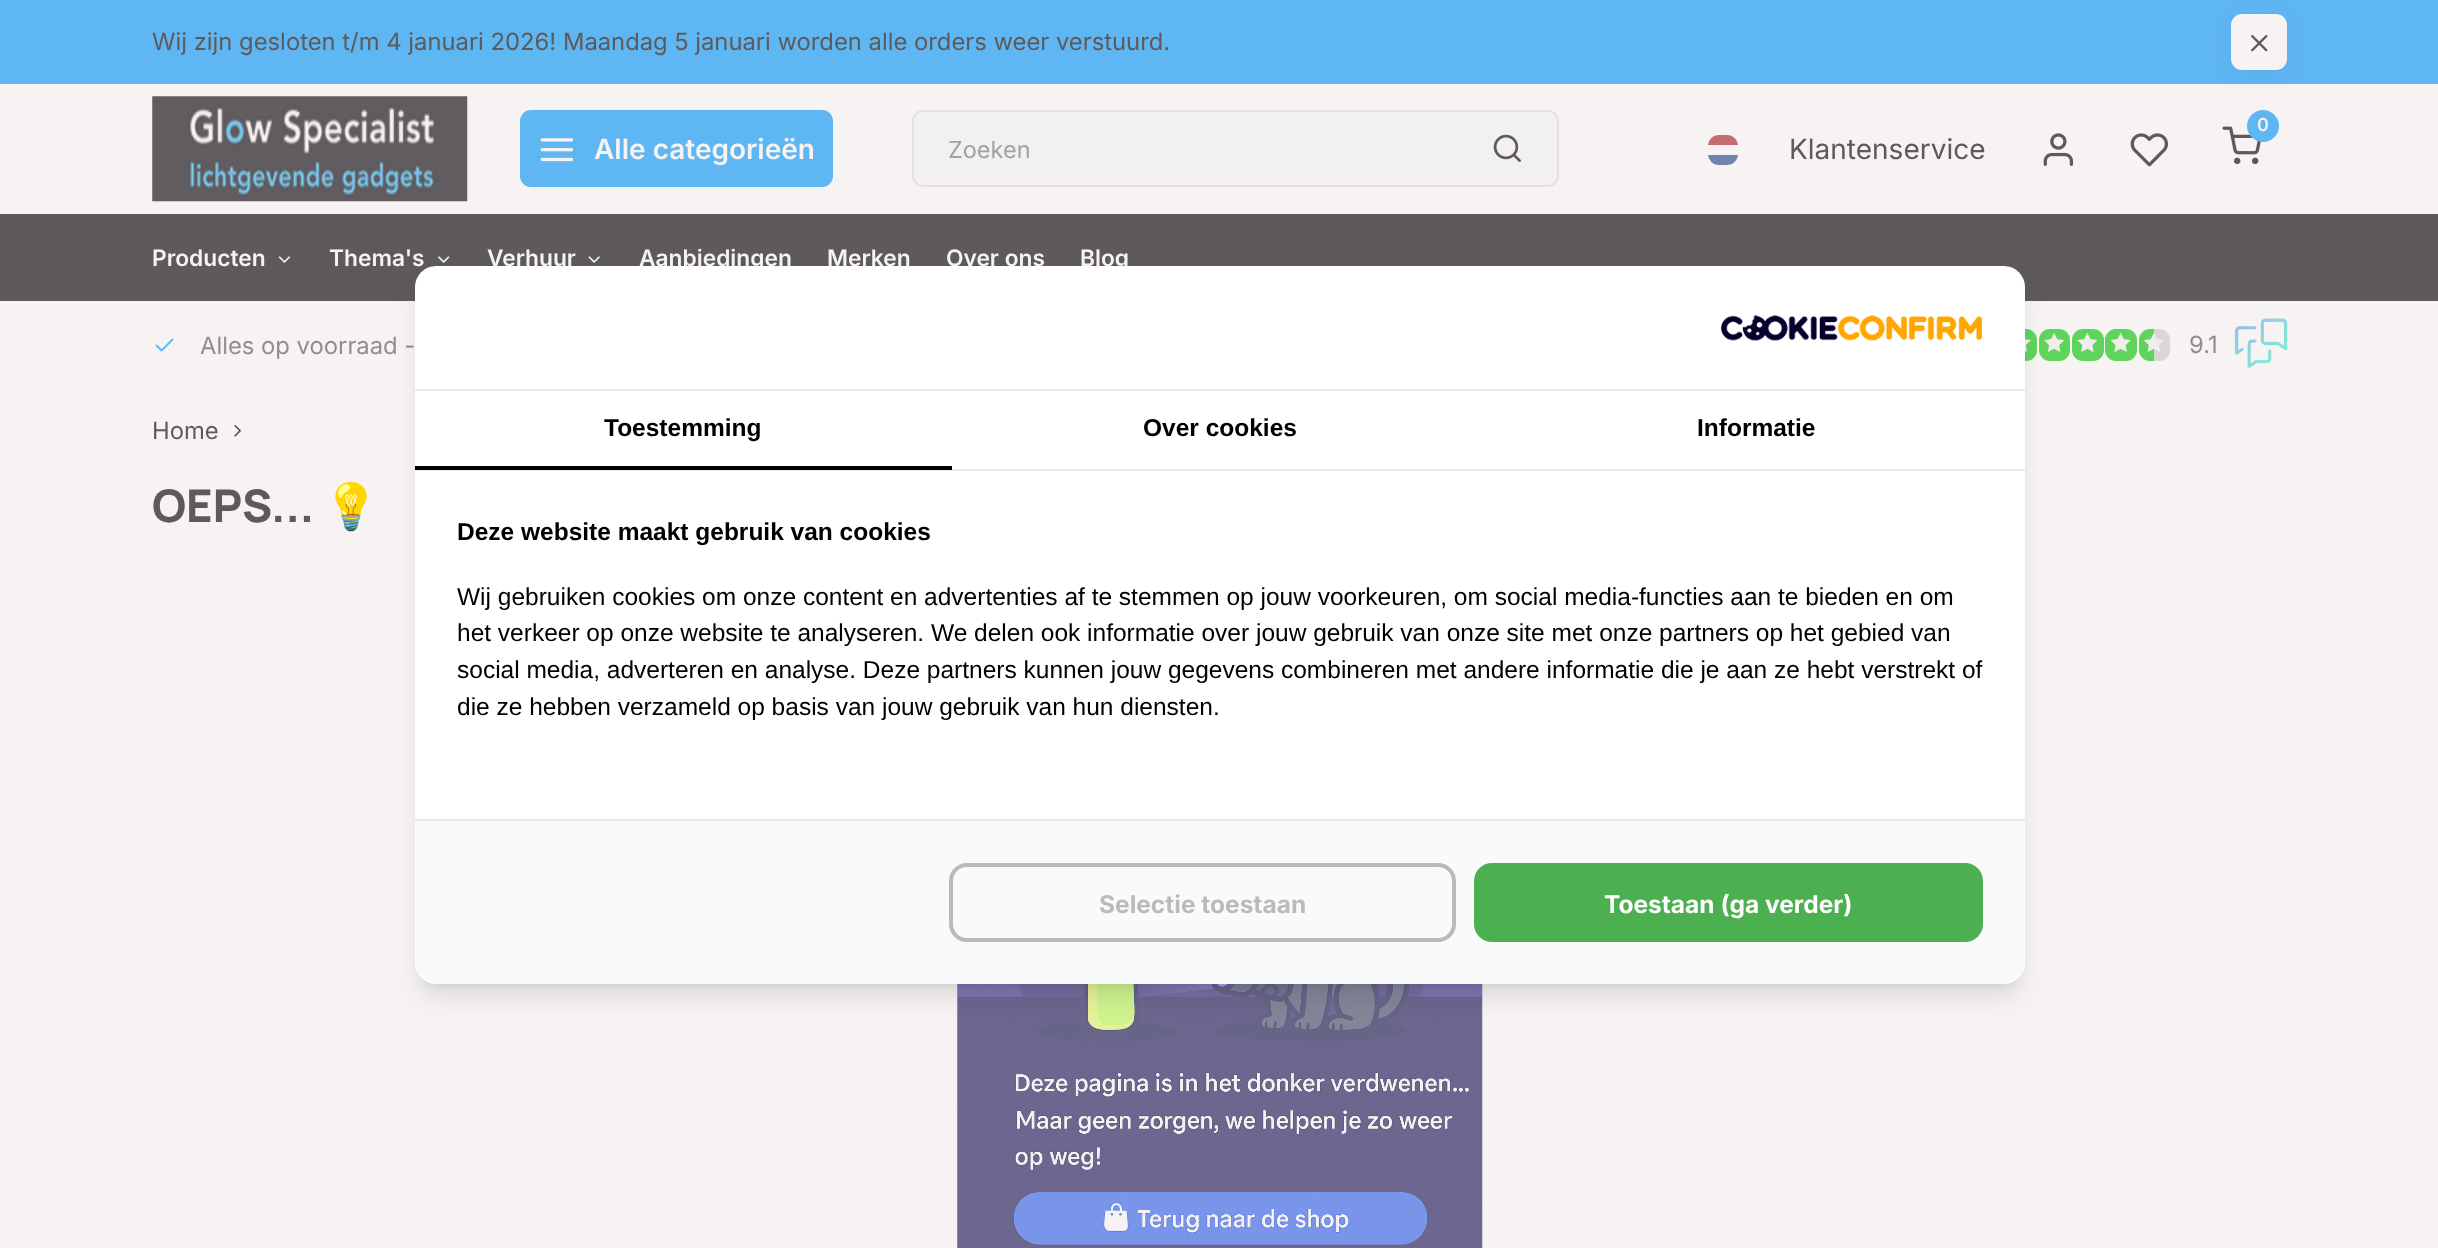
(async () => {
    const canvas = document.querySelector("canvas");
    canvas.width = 2438;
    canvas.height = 1248;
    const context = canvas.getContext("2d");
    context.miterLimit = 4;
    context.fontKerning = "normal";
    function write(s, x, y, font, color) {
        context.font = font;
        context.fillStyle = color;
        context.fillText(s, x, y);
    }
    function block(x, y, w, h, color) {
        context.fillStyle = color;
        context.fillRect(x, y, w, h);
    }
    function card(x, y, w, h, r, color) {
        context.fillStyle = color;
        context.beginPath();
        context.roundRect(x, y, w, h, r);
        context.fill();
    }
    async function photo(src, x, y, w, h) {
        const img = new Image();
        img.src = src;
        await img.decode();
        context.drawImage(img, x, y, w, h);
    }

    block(0, 0, 2438, 1248, "rgb(247, 243, 243)");
    block(0, 0, 2438, 84, "rgb(94, 182, 243)");
    write("Wij zijn gesloten t/m 4 januari 2026! Maandag 5 januari worden alle orders weer verstuurd.", 152, 50, "23.8px Inter", "rgb(94, 90, 90)");
    context.fillStyle = "rgba(94, 90, 90, 0.08)";
    context.filter = "blur(10.5px)";
    context.beginPath();
    context.roundRect(2231, 18, 56, 56, 11);
    context.fill();
    context.filter = "none";
    card(2231, 14, 56, 56, 11, "rgb(247, 243, 243)");
    await photo("media/1.png", 2251, 35, 17, 17);
    await photo("media/2.png", 152, 96, 316, 106);
    card(520, 110, 313, 77, 11, "rgb(94, 182, 243)");
    await photo("media/3.png", 540, 138, 34, 24);
    write("Alle categorieën", 594, 159, "600 28px Inter", "rgb(247, 243, 243)");
    context.fillStyle = "rgb(243, 240, 241)";
    context.beginPath();
    context.roundRect(913, 111, 645, 75, 10);
    context.fill();
    context.strokeStyle = "rgb(229, 225, 225)";
    context.lineWidth = 2;
    context.stroke();
    write("Zoeken", 948, 158, "23.5px Inter", "rgb(164, 161, 161)");
    await photo("media/4.png", 1493, 134, 28, 28);
    await photo("media/5.png", 2222, 126, 39, 39);
    context.fillStyle = "rgb(94, 182, 243)";
    context.beginPath();
    context.arc(2263, 126, 16, 0, Math.PI * 2);
    context.fill();
    write("0", 2257, 131, "600 18px Inter", "rgb(247, 243, 243)");
    context.save();
    context.beginPath();
    context.roundRect(1708, 135, 30, 30, 11);
    context.clip();
    block(1708, 155, 30, 10, "rgb(114, 132, 174)");
    block(1708, 135, 30, 10, "rgb(198, 107, 114)");
    context.restore();
    write("Klantenservice", 1789, 159, "28px Inter", "rgb(94, 90, 90)");
    await photo("media/6.png", 2043, 133, 31, 33);
    await photo("media/7.png", 2130, 133, 39, 34);
    block(0, 214, 2438, 87, "rgb(94, 90, 90)");
    write("Producten", 152, 266, "600 22.75px Inter", "rgb(247, 243, 243)");
    await photo("media/8.png", 278, 256, 12, 7);
    write("Thema's", 329, 266, "600 22.75px Inter", "rgb(247, 243, 243)");
    await photo("media/9.png", 438, 256, 12, 7);
    write("Verhuur", 487, 266, "600 22.75px Inter", "rgb(247, 243, 243)");
    await photo("media/10.png", 588, 256, 12, 7);
    write("Aanbiedingen", 639, 266, "600 22.75px Inter", "rgb(247, 243, 243)");
    write("Merken", 827, 266, "600 22.75px Inter", "rgb(247, 243, 243)");
    write("Over ons", 946, 266, "600 22.75px Inter", "rgb(247, 243, 243)");
    write("Blog", 1080, 266, "600 22.75px Inter", "rgb(247, 243, 243)");
    await photo("media/11.png", 155, 338, 19, 14);
    write("Alles op voorraad -", 200, 354, "23.8px Inter", "rgb(145, 141, 141)");
    card(2006, 329, 31, 32, 11, "rgb(94, 213, 90)");
    await photo("media/12.png", 2025, 339, 6, 13);
    card(2039, 329, 31, 32, 11, "rgb(94, 213, 90)");
    await photo("media/13.png", 2044, 333, 21, 19);
    card(2072, 329, 32, 32, 11, "rgb(94, 213, 90)");
    await photo("media/14.png", 2077, 333, 21, 19);
    card(2105, 329, 32, 32, 11, "rgb(94, 213, 90)");
    await photo("media/15.png", 2110, 333, 21, 19);
    context.beginPath();
    context.roundRect(2139, 329, 15, 32, [11, 0, 0, 11]);
    context.fill();
    context.fillStyle = "rgb(218, 214, 214)";
    context.beginPath();
    context.roundRect(2154, 329, 16, 32, [0, 11, 11, 0]);
    context.fill();
    await photo("media/16.png", 2143, 333, 21, 19);
    write("9.1", 2189, 353, "23.8px Inter", "rgb(145, 141, 141)");
    await photo("media/17.png", 2234, 318, 54, 50);
    write("Home", 152, 439, "23.8px Inter", "rgb(94, 90, 90)");
    await photo("media/18.png", 234, 424, 7, 13);
    write("OEPS...", 152, 522, "200 45px Manrope", "rgb(94, 90, 90)");
    write("💡", 323, 522, "bold 45px Noto Color Emoji", "rgb(94, 90, 90)");
    await photo("media/19.png", 957, 984, 526, 264);
    context.fillStyle = "rgba(0, 0, 0, 0.1)";
    context.filter = "blur(5px)";
    context.beginPath();
    context.roundRect(422, 280, 1596, 704, 14);
    context.fill();
    context.filter = "none";
    context.filter = "blur(13px)";
    context.beginPath();
    context.roundRect(420, 289, 1600, 707, 16);
    context.fill();
    context.filter = "none";
    card(415, 266, 1610, 718, 21, "rgb(255, 255, 255)");
    block(415, 389, 1610, 2, "rgb(229, 231, 235)");
    await photo("media/20.png", 1721, 315, 261, 26);
    block(415, 469, 1610, 2, "rgb(229, 231, 235)");
    block(415, 466, 537, 4, "rgb(0, 0, 0)");
    write("Toestemming", 604, 436, "bold 24.5px Liberation Sans", "rgb(0, 0, 0)");
    write("Over cookies", 1143, 436, "bold 24.5px Liberation Sans", "rgb(0, 0, 0)");
    write("Informatie", 1697, 436, "bold 24.5px Liberation Sans", "rgb(0, 0, 0)");
    write("Deze website maakt gebruik van cookies", 457, 540, "bold 24.5px Liberation Sans", "rgb(0, 0, 0)");
    write("Wij gebruiken cookies om onze content en advertenties af te stemmen op jouw voorkeuren, om social media-functies aan te bieden en om", 457, 605, "24.5px Liberation Sans", "rgb(0, 0, 0)");
    write("het verkeer op onze website te analyseren. We delen ook informatie over jouw gebruik van onze site met onze partners op het gebied van", 457, 641, "24.5px Liberation Sans", "rgb(0, 0, 0)");
    write("social media, adverteren en analyse. Deze partners kunnen jouw gegevens combineren met andere informatie die je aan ze hebt verstrekt of", 457, 678, "24.5px Liberation Sans", "rgb(0, 0, 0)");
    write("die ze hebben verzameld op basis van jouw gebruik van hun diensten.", 457, 715, "24.5px Liberation Sans", "rgb(0, 0, 0)");
    context.fillStyle = "rgb(249, 250, 251)";
    context.beginPath();
    context.roundRect(415, 819, 1610, 165, [0, 0, 21, 21]);
    context.fill();
    block(415, 819, 1610, 2, "rgb(229, 231, 235)");
    context.beginPath();
    context.roundRect(951, 865, 503, 75, 16);
    context.strokeStyle = "rgb(186, 186, 186)";
    context.lineWidth = 4;
    context.stroke();
    write("Selectie toestaan", 1099, 913, "bold 24.5px Inter", "rgb(186, 186, 186)");
    context.fillStyle = "rgb(76, 175, 80)";
    context.beginPath();
    context.roundRect(1476, 865, 505, 75, 16);
    context.fill();
    context.strokeStyle = "rgb(76, 175, 80)";
    context.stroke();
    write("Toestaan (ga verder)", 1604, 913, "bold 24.5px Inter", "rgb(255, 255, 255)");
})();
